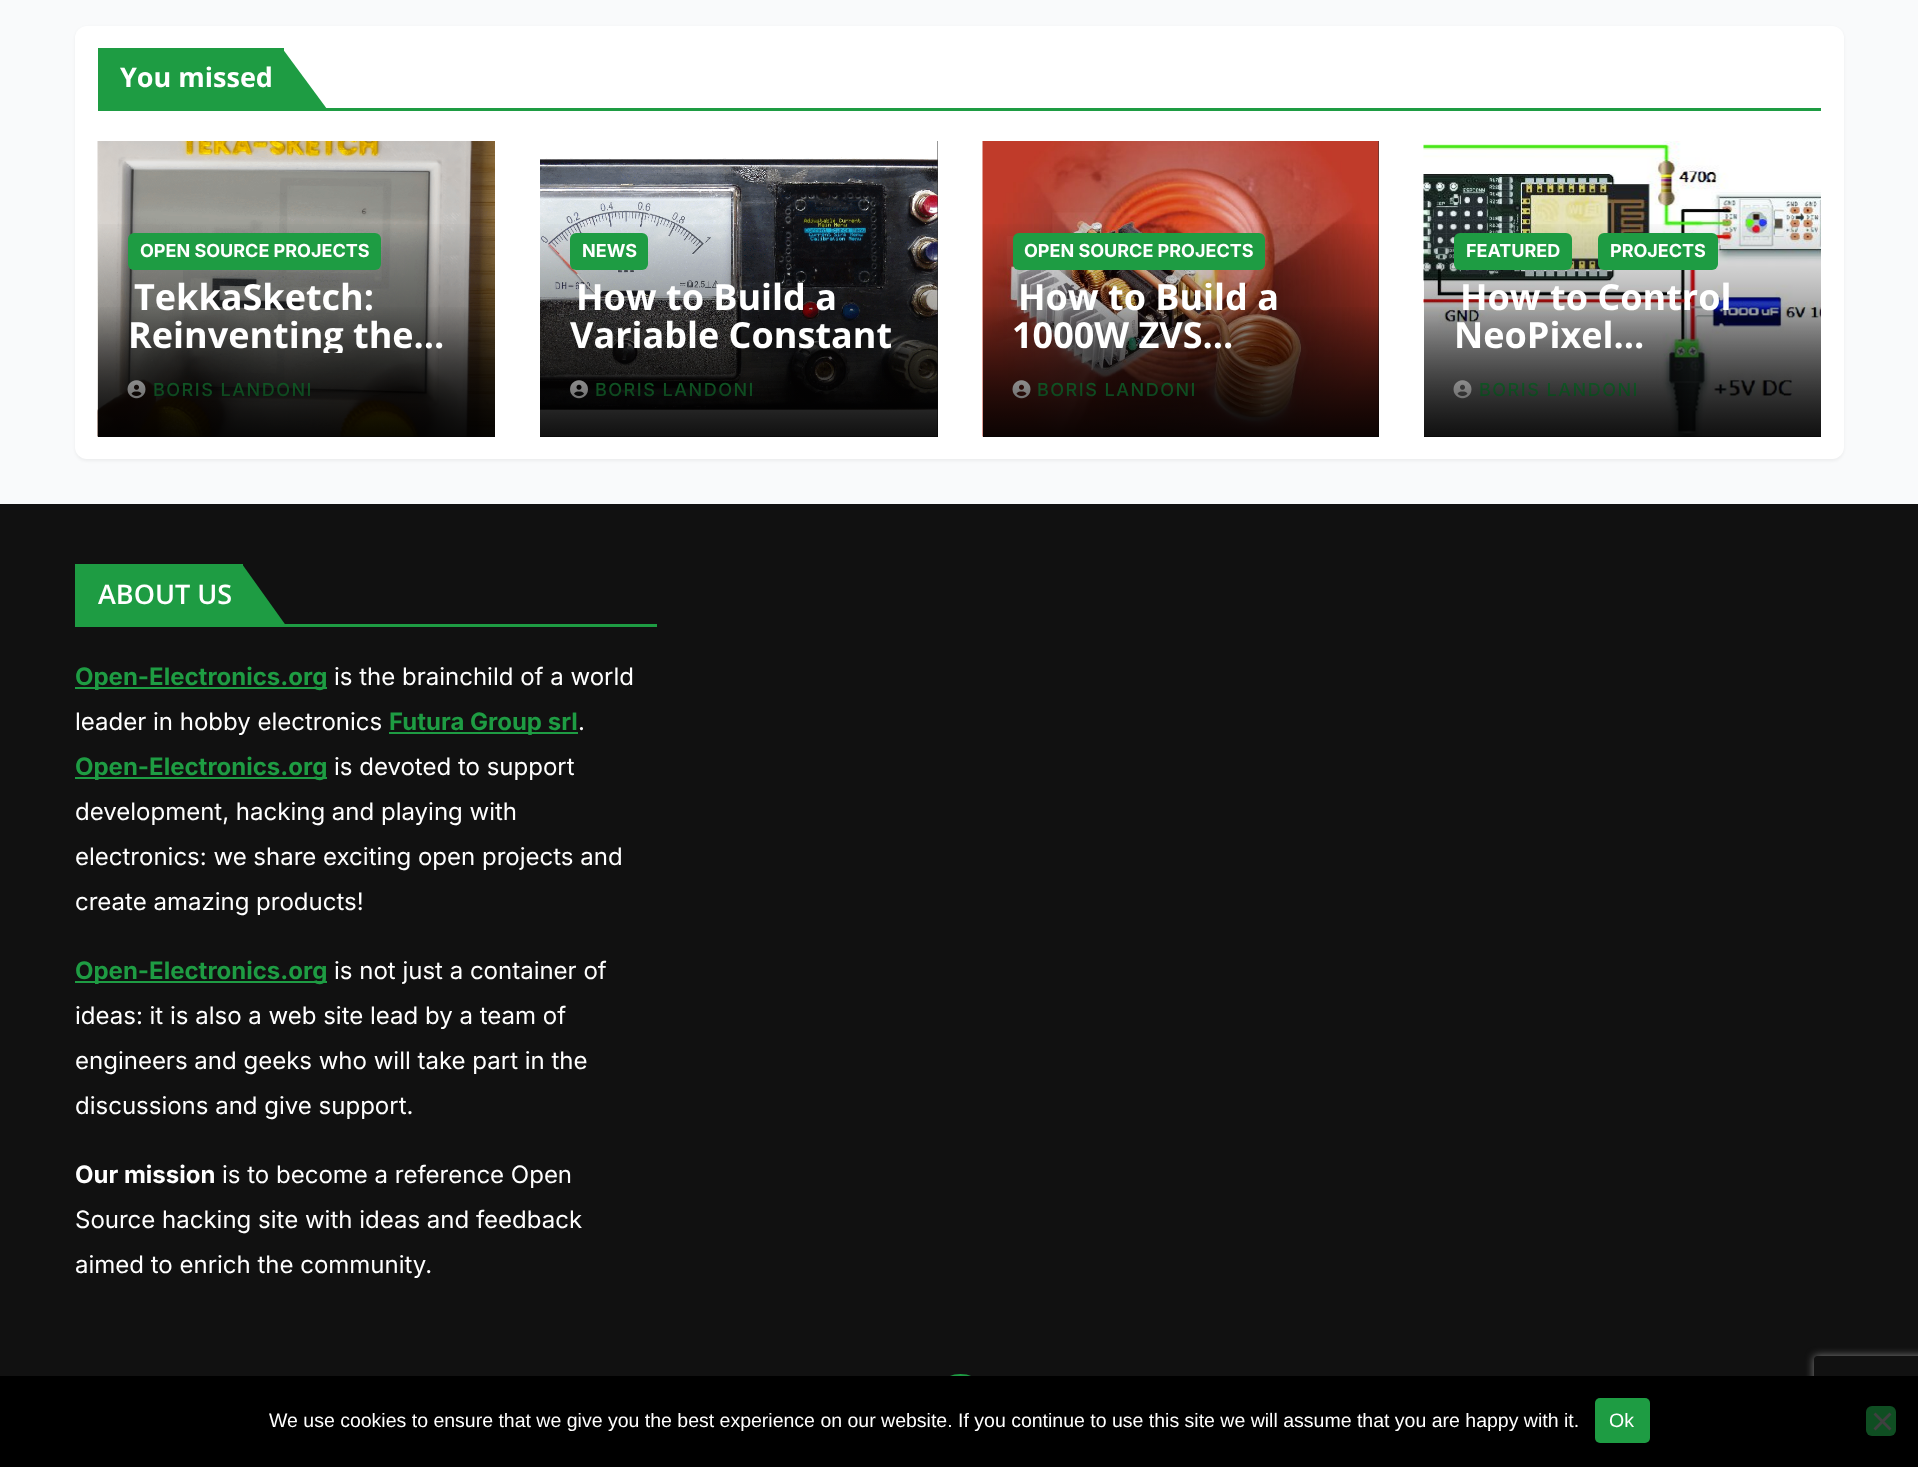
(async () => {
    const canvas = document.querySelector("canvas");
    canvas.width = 1918;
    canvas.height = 1467;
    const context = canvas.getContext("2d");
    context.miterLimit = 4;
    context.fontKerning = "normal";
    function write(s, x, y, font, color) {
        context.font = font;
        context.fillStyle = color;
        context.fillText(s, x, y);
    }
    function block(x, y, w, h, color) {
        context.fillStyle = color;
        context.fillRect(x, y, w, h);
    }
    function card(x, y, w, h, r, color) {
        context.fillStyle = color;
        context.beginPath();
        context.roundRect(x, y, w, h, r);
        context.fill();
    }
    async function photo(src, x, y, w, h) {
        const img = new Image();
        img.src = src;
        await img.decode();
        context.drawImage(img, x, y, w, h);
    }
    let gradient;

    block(0, 0, 1918, 1467, "rgb(249, 250, 251)");
    context.fillStyle = "rgba(0, 0, 0, 0.05)";
    context.filter = "blur(1.5px)";
    context.beginPath();
    context.roundRect(75, 27, 1769, 434, 12);
    context.fill();
    context.filter = "none";
    card(75, 26, 1769, 433, 12, "rgb(255, 255, 255)");
    block(98, 108, 1723, 3, "rgb(30, 156, 67)");
    block(98, 48, 186, 60, "rgb(30, 156, 67)");
    write("You missed", 120, 87, "bold 27px Open Sans", "rgb(255, 255, 255)");
    context.fillStyle = "rgb(30, 156, 67)";
    context.beginPath();
    context.moveTo(282, 48);
    context.lineTo(282, 109);
    context.lineTo(327, 109);
    context.closePath();
    context.fill();
    block(98, 436, 397, 1, "rgb(51, 51, 51)");
    await photo("media/1.png", 97, 141, 398, 296);
    gradient = context.createLinearGradient(296, 218, 296, 437);
    gradient.addColorStop(0, "rgba(0, 0, 0, 0)");
    gradient.addColorStop(0.5, "rgba(0, 0, 0, 0.4)");
    gradient.addColorStop(1, "rgba(0, 0, 0, 0.7)");
    context.fillStyle = gradient;
    context.fillRect(98, 224, 397, 213);
    card(128, 233, 253, 37, 6, "rgb(30, 156, 67)");
    write("OPEN SOURCE PROJECTS", 140, 257, "bold 18px Inter", "rgb(255, 255, 255)");
    await photo("media/2.png", 127, 380, 19, 19);
    context.letterSpacing = "1.5px";
    write("BORIS LANDONI", 153, 396, "500 18px Inter", "rgb(30, 156, 67)");
    gradient = context.createLinearGradient(296, 437, 296, 303);
    gradient.addColorStop(0, "rgba(0, 0, 0, 0.78)");
    gradient.addColorStop(1, "rgba(0, 0, 0, 0)");
    context.fillStyle = gradient;
    context.fillRect(98, 307, 397, 130);
    context.letterSpacing = "0px";
    write("TekkaSketch:", 134, 310, "bold 36px Open Sans", "rgb(255, 255, 255)");
    context.save();
    context.beginPath();
    context.rect(128, 278, 337, 75);
    context.clip();
    write("Reinventing the…", 128, 348, "bold 36px Open Sans", "rgb(255, 255, 255)");
    context.restore();
    block(540, 141, 398, 296, "rgb(51, 51, 51)");
    await photo("media/3.png", 540, 141, 398, 296);
    gradient = context.createLinearGradient(739, 218, 739, 437);
    gradient.addColorStop(0, "rgba(0, 0, 0, 0)");
    gradient.addColorStop(0.5, "rgba(0, 0, 0, 0.4)");
    gradient.addColorStop(1, "rgba(0, 0, 0, 0.7)");
    context.fillStyle = gradient;
    context.fillRect(540, 224, 398, 213);
    card(570, 233, 78, 37, 6, "rgb(30, 156, 67)");
    write("NEWS", 582, 257, "bold 18px Inter", "rgb(255, 255, 255)");
    await photo("media/4.png", 570, 380, 18, 19);
    context.letterSpacing = "1.5px";
    write("BORIS LANDONI", 595, 396, "500 18px Inter", "rgb(30, 156, 67)");
    gradient = context.createLinearGradient(739, 437, 739, 303);
    gradient.addColorStop(0, "rgba(0, 0, 0, 0.78)");
    gradient.addColorStop(1, "rgba(0, 0, 0, 0)");
    context.fillStyle = gradient;
    context.fillRect(540, 307, 398, 130);
    context.letterSpacing = "0px";
    write("How to Build a", 576, 310, "bold 36px Open Sans", "rgb(255, 255, 255)");
    write("Variable Constant", 570, 348, "bold 36px Open Sans", "rgb(255, 255, 255)");
    block(983, 141, 396, 296, "rgb(51, 51, 51)");
    await photo("media/5.png", 982, 141, 397, 296);
    gradient = context.createLinearGradient(1181, 218, 1181, 437);
    gradient.addColorStop(0, "rgba(0, 0, 0, 0)");
    gradient.addColorStop(0.5, "rgba(0, 0, 0, 0.4)");
    gradient.addColorStop(1, "rgba(0, 0, 0, 0.7)");
    context.fillStyle = gradient;
    context.fillRect(983, 224, 396, 213);
    card(1013, 233, 252, 37, 6, "rgb(30, 156, 67)");
    write("OPEN SOURCE PROJECTS", 1024, 257, "bold 18px Inter", "rgb(255, 255, 255)");
    await photo("media/6.png", 1012, 380, 19, 19);
    context.letterSpacing = "1.5px";
    write("BORIS LANDONI", 1037, 396, "500 18px Inter", "rgb(30, 156, 67)");
    gradient = context.createLinearGradient(1181, 437, 1181, 303);
    gradient.addColorStop(0, "rgba(0, 0, 0, 0.78)");
    gradient.addColorStop(1, "rgba(0, 0, 0, 0)");
    context.fillStyle = gradient;
    context.fillRect(983, 307, 396, 130);
    context.letterSpacing = "0px";
    write("How to Build a", 1018, 310, "bold 36px Open Sans", "rgb(255, 255, 255)");
    write("1000W ZVS…", 1012, 348, "bold 36px Open Sans", "rgb(255, 255, 255)");
    block(1424, 436, 397, 1, "rgb(51, 51, 51)");
    await photo("media/7.png", 1423, 141, 398, 296);
    gradient = context.createLinearGradient(1622, 218, 1622, 437);
    gradient.addColorStop(0, "rgba(0, 0, 0, 0)");
    gradient.addColorStop(0.5, "rgba(0, 0, 0, 0.4)");
    gradient.addColorStop(1, "rgba(0, 0, 0, 0.7)");
    context.fillStyle = gradient;
    context.fillRect(1424, 224, 397, 213);
    card(1454, 233, 118, 37, 6, "rgb(30, 156, 67)");
    write("FEATURED", 1466, 257, "bold 18px Inter", "rgb(255, 255, 255)");
    card(1598, 233, 120, 37, 6, "rgb(30, 156, 67)");
    write("PROJECTS", 1610, 257, "bold 18px Inter", "rgb(255, 255, 255)");
    await photo("media/8.png", 1453, 380, 19, 19);
    context.letterSpacing = "1.5px";
    write("BORIS LANDONI", 1479, 396, "500 18px Inter", "rgb(30, 156, 67)");
    gradient = context.createLinearGradient(1622, 437, 1622, 303);
    gradient.addColorStop(0, "rgba(0, 0, 0, 0.78)");
    gradient.addColorStop(1, "rgba(0, 0, 0, 0)");
    context.fillStyle = gradient;
    context.fillRect(1424, 307, 397, 130);
    context.letterSpacing = "0px";
    write("How to Control", 1460, 310, "bold 36px Open Sans", "rgb(255, 255, 255)");
    write("NeoPixel…", 1454, 348, "bold 36px Open Sans", "rgb(255, 255, 255)");
    block(0, 504, 1918, 872, "rgb(17, 17, 17)");
    block(75, 564, 168, 60, "rgb(30, 156, 67)");
    write("ABOUT US", 98, 604, "600 27px Open Sans", "rgb(255, 255, 255)");
    context.fillStyle = "rgb(30, 156, 67)";
    context.beginPath();
    context.moveTo(242, 564);
    context.lineTo(242, 627);
    context.lineTo(287, 627);
    context.closePath();
    context.fill();
    block(75, 624, 582, 3, "rgb(30, 156, 67)");
    block(75, 687, 252, 2, "rgb(30, 156, 67)");
    write("Open-Electronics.org", 75, 685, "bold 24px Inter", "rgb(30, 156, 67)");
    write("is the brainchild of a world", 334, 685, "24px Inter", "rgb(255, 255, 255)");
    write("leader in hobby electronics", 75, 730, "24px Inter", "rgb(255, 255, 255)");
    block(389, 732, 189, 2, "rgb(30, 156, 67)");
    write("Futura Group srl", 389, 730, "bold 24px Inter", "rgb(30, 156, 67)");
    write(".", 578, 730, "24px Inter", "rgb(255, 255, 255)");
    block(75, 777, 252, 2, "rgb(30, 156, 67)");
    write("Open-Electronics.org", 75, 775, "bold 24px Inter", "rgb(30, 156, 67)");
    write("is devoted to support", 334, 775, "24px Inter", "rgb(255, 255, 255)");
    write("development, hacking and playing with", 75, 820, "24px Inter", "rgb(255, 255, 255)");
    write("electronics: we share exciting open projects and", 75, 865, "24px Inter", "rgb(255, 255, 255)");
    write("create amazing products!", 75, 910, "24px Inter", "rgb(255, 255, 255)");
    block(75, 981, 252, 2, "rgb(30, 156, 67)");
    write("Open-Electronics.org", 75, 979, "bold 24px Inter", "rgb(30, 156, 67)");
    write("is not just a container of", 334, 979, "24px Inter", "rgb(255, 255, 255)");
    write("ideas: it is also a web site lead by a team of", 75, 1024, "24px Inter", "rgb(255, 255, 255)");
    write("engineers and geeks who will take part in the", 75, 1069, "24px Inter", "rgb(255, 255, 255)");
    write("discussions and give support.", 75, 1114, "24px Inter", "rgb(255, 255, 255)");
    write("Our mission", 75, 1183, "bold 24px Inter", "rgb(255, 255, 255)");
    write("is to become a reference Open", 222, 1183, "24px Inter", "rgb(255, 255, 255)");
    write("Source hacking site with ideas and feedback", 75, 1228, "24px Inter", "rgb(255, 255, 255)");
    write("aimed to enrich the community.", 75, 1273, "24px Inter", "rgb(255, 255, 255)");
    context.fillStyle = "rgb(30, 156, 67)";
    context.beginPath();
    context.arc(960.5, 1405.5, 31.5, 0, Math.PI * 2);
    context.fill();
    context.save();
    context.beginPath();
    context.moveTo(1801, 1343);
    context.lineTo(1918, 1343);
    context.lineTo(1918, 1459);
    context.lineTo(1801, 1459);
    context.closePath();
    context.moveTo(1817, 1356);
    context.lineTo(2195, 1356);
    context.bezierCurveTo(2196.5, 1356, 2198, 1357.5, 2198, 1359);
    context.lineTo(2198, 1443);
    context.bezierCurveTo(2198, 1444.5, 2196.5, 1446, 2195, 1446);
    context.lineTo(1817, 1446);
    context.bezierCurveTo(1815.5, 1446, 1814, 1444.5, 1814, 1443);
    context.lineTo(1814, 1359);
    context.bezierCurveTo(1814, 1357.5, 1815.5, 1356, 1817, 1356);
    context.closePath();
    context.clip("evenodd");
    context.fillStyle = "rgb(128, 128, 128)";
    context.filter = "blur(4px)";
    context.beginPath();
    context.roundRect(1814, 1356, 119, 90, 3);
    context.fill();
    context.filter = "none";
    context.restore();
    block(0, 1376, 1918, 91, "rgb(0, 0, 0)");
    write("We use cookies to ensure that we give you the best experience on our website. If you continue to use this site we will assume that you are happy with it.", 269, 1427, "19.5px Liberation Sans", "rgb(255, 255, 255)");
    card(1595, 1398, 55, 45, 5, "rgb(30, 156, 67)");
    write("Ok", 1609, 1427, "19.5px Liberation Sans", "rgb(255, 255, 255)");
    card(1866, 1406, 30, 30, 6, "rgb(15, 78, 34)");
    context.fillStyle = "rgb(64, 64, 64)";
    context.beginPath();
    context.moveTo(1889.5, 1412.5);
    context.lineTo(1891.5, 1414.5);
    context.lineTo(1875.5, 1430.5);
    context.lineTo(1873.5, 1428.5);
    context.closePath();
    context.fill();
    context.beginPath();
    context.moveTo(1873.5, 1414.5);
    context.lineTo(1875.5, 1412.5);
    context.lineTo(1891.5, 1428.5);
    context.lineTo(1889.5, 1430.5);
    context.closePath();
    context.fill();
})();
